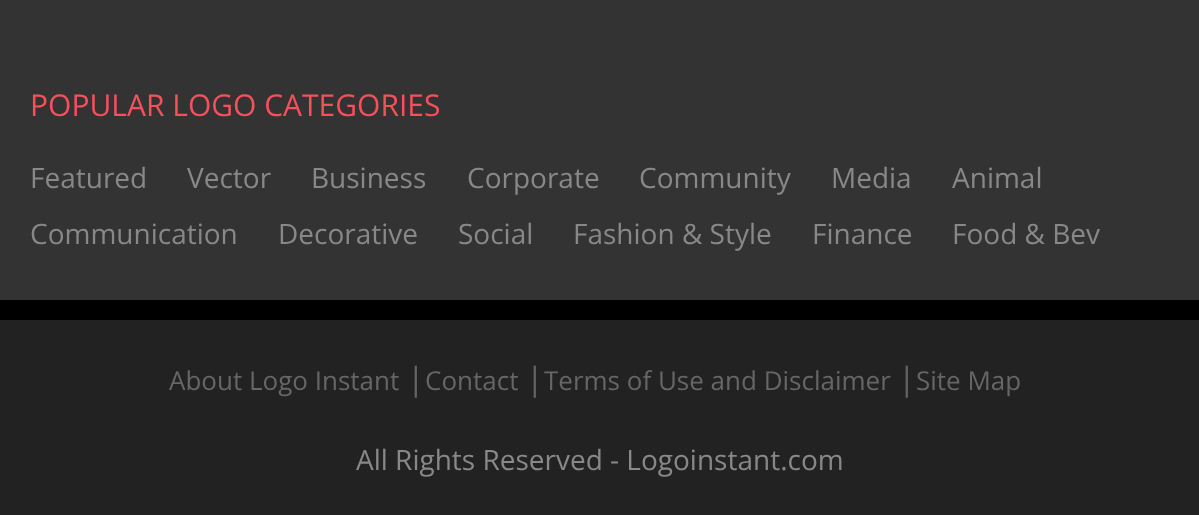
(async () => {
    const canvas = document.querySelector("canvas");
    canvas.width = 1199;
    canvas.height = 515;
    const context = canvas.getContext("2d");
    context.miterLimit = 4;
    context.fontKerning = "normal";
    function write(s, x, y, font, color) {
        context.font = font;
        context.fillStyle = color;
        context.fillText(s, x, y);
    }
    function block(x, y, w, h, color) {
        context.fillStyle = color;
        context.fillRect(x, y, w, h);
    }

    block(0, 0, 1199, 515, "rgb(51, 51, 51)");
    write("POPULAR LOGO CATEGORIES", 30, 116, "30px Open Sans", "rgb(247, 80, 90)");
    write("Featured", 30, 188, "28px Open Sans", "rgb(136, 136, 136)");
    write("Vector", 187, 188, "28px Open Sans", "rgb(136, 136, 136)");
    write("Business", 311, 188, "28px Open Sans", "rgb(136, 136, 136)");
    write("Corporate", 467, 188, "28px Open Sans", "rgb(136, 136, 136)");
    write("Community", 639, 188, "28px Open Sans", "rgb(136, 136, 136)");
    write("Media", 831, 188, "28px Open Sans", "rgb(136, 136, 136)");
    write("Animal", 952, 188, "28px Open Sans", "rgb(136, 136, 136)");
    write("Communication", 30, 244, "28px Open Sans", "rgb(136, 136, 136)");
    write("Decorative", 278, 244, "28px Open Sans", "rgb(136, 136, 136)");
    write("Social", 458, 244, "28px Open Sans", "rgb(136, 136, 136)");
    write("Fashion & Style", 573, 244, "28px Open Sans", "rgb(136, 136, 136)");
    write("Finance", 812, 244, "28px Open Sans", "rgb(136, 136, 136)");
    write("Food & Bev", 952, 244, "28px Open Sans", "rgb(136, 136, 136)");
    block(0, 300, 1199, 20, "rgb(0, 0, 0)");
    block(0, 320, 1199, 195, "rgb(34, 34, 34)");
    write("About Logo Instant", 169, 390, "26px Open Sans", "rgb(102, 102, 102)");
    write("|", 407, 390, "32px Open Sans", "rgb(102, 102, 102)");
    write("Contact", 425, 390, "26px Open Sans", "rgb(102, 102, 102)");
    write("|", 526, 390, "32px Open Sans", "rgb(102, 102, 102)");
    write("Terms of Use and Disclaimer", 544, 390, "26px Open Sans", "rgb(102, 102, 102)");
    write("|", 898, 390, "32px Open Sans", "rgb(102, 102, 102)");
    write("Site Map", 916, 390, "26px Open Sans", "rgb(102, 102, 102)");
    write("All Rights Reserved - Logoinstant.com", 356, 470, "28px Open Sans", "rgb(136, 136, 136)");
})();
